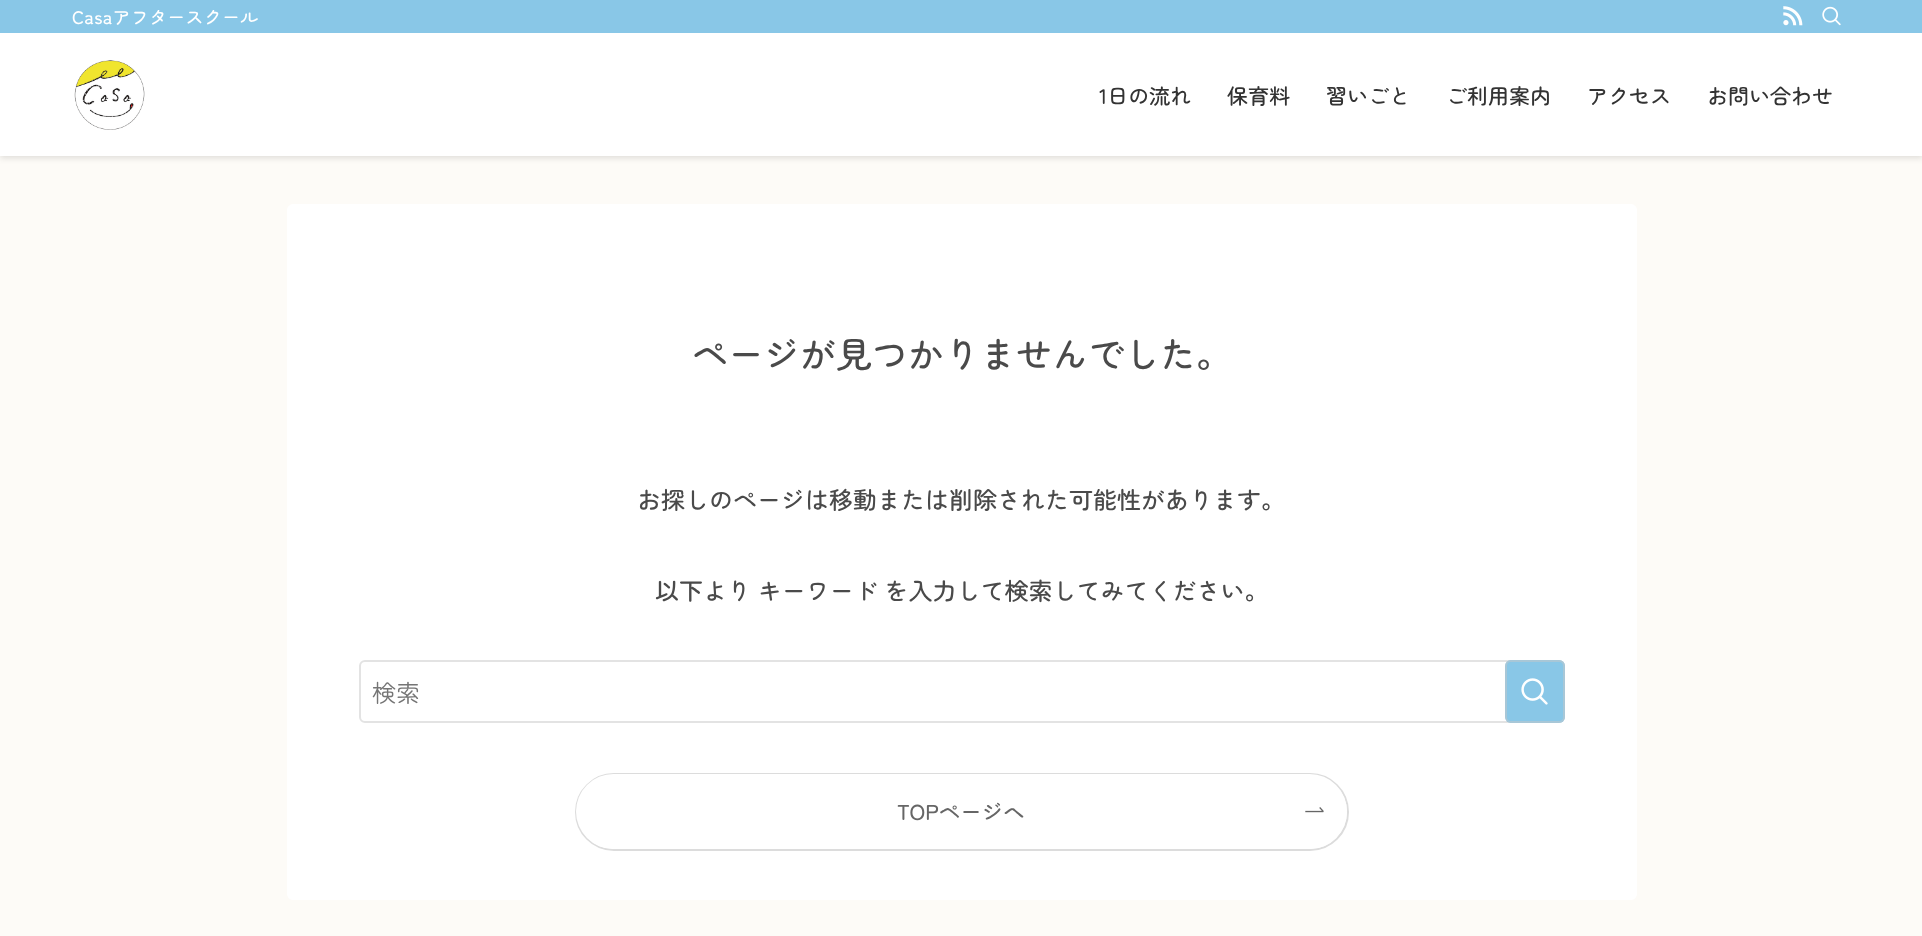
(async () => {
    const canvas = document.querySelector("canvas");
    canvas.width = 1922;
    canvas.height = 936;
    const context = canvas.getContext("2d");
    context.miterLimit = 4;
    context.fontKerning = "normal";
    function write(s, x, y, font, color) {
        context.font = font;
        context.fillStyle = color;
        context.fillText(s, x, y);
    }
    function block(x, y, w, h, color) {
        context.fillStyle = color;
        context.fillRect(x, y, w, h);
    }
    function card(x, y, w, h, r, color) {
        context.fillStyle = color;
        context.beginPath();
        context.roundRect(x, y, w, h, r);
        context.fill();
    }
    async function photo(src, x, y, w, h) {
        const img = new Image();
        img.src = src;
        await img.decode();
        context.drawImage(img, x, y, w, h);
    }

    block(0, 0, 1922, 936, "rgb(253, 251, 247)");
    context.fillStyle = "rgba(0, 0, 0, 0.12)";
    context.filter = "blur(3px)";
    context.beginPath();
    context.rect(0, 2, 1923, 156);
    context.fill();
    context.filter = "none";
    block(0, 33, 1922, 123, "rgb(255, 255, 255)");
    block(0, 0, 1922, 33, "rgb(137, 199, 231)");
    context.letterSpacing = "0.25px";
    write("Casaアフタースクール", 72, 24, "500 18px Zen Maru Gothic", "rgb(255, 255, 255)");
    await photo("media/1.png", 1783, 6, 20, 20);
    await photo("media/2.png", 1822, 6, 19, 20);
    await photo("media/3.png", 74, 60, 71, 70);
    context.letterSpacing = "0px";
    write("1日の流れ", 1099, 104, "500 21px Zen Maru Gothic", "rgb(51, 51, 51)");
    write("保育料", 1227, 104, "500 21px Zen Maru Gothic", "rgb(51, 51, 51)");
    write("習いごと", 1326, 104, "500 21px Zen Maru Gothic", "rgb(51, 51, 51)");
    write("ご利用案内", 1446, 104, "500 21px Zen Maru Gothic", "rgb(51, 51, 51)");
    write("アクセス", 1587, 104, "500 21px Zen Maru Gothic", "rgb(51, 51, 51)");
    write("お問い合わせ", 1707, 104, "500 21px Zen Maru Gothic", "rgb(51, 51, 51)");
    card(287, 204, 1350, 696, 6, "rgb(255, 255, 255)");
    write("ページが見つかりませんでした。", 692, 368, "500 36px Zen Maru Gothic", "rgb(74, 74, 74)");
    write("お探しのページは移動または削除された可能性があります。", 637, 509, "500 24px Zen Maru Gothic", "rgb(74, 74, 74)");
    write("以下より キーワード を入力して検索してみてください。", 655, 600, "500 24px Zen Maru Gothic", "rgb(74, 74, 74)");
    context.beginPath();
    context.roundRect(360, 661, 1204, 61, 5);
    context.strokeStyle = "rgb(227, 227, 227)";
    context.lineWidth = 2;
    context.stroke();
    write("検索", 372, 702, "24px Zen Maru Gothic", "rgb(117, 117, 117)");
    card(1505, 660, 60, 63, 6, "rgb(137, 199, 231)");
    context.beginPath();
    context.roundRect(1506, 661, 58, 61, 5);
    context.strokeStyle = "rgba(199, 199, 199, 0.5)";
    context.stroke();
    await photo("media/4.png", 1521, 678, 27, 27);
    context.beginPath();
    context.roundRect(576, 774, 772, 76, 38);
    context.strokeStyle = "rgb(220, 220, 220)";
    context.stroke();
    card(576, 774, 771, 75, 37.5, "rgb(255, 255, 255)");
    write("TOPページへ", 897, 820, "500 21.5px Zen Maru Gothic", "rgb(102, 102, 102)");
    await photo("media/5.png", 1305, 807, 19, 6);
})();
